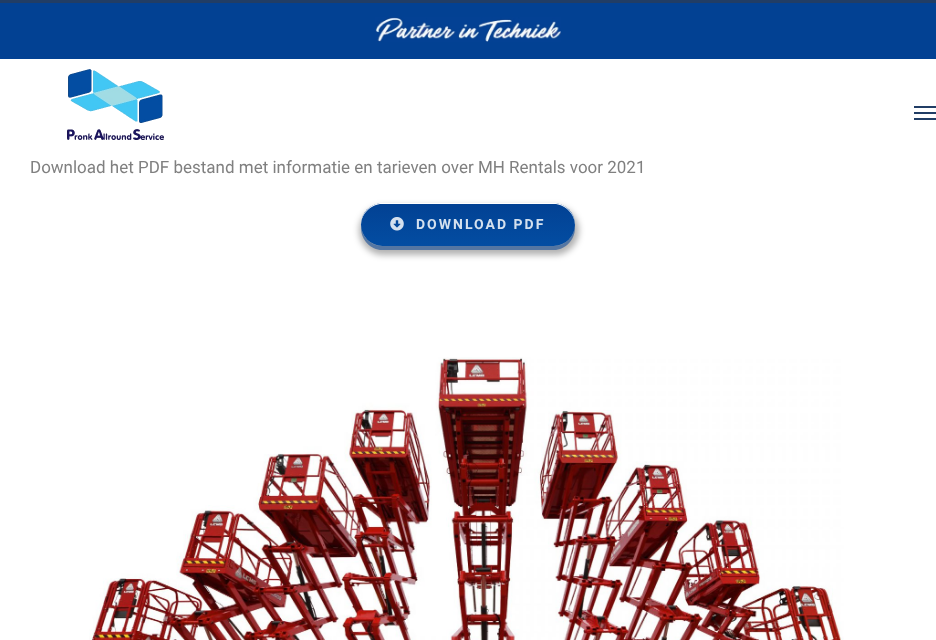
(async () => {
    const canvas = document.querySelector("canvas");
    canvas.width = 936;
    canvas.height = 640;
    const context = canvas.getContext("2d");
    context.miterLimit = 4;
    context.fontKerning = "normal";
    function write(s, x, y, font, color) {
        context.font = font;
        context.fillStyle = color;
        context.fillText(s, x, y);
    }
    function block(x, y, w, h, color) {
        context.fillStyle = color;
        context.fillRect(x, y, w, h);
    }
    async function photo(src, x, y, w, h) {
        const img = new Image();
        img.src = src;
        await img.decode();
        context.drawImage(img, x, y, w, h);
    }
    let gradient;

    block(0, 0, 936, 640, "rgb(255, 255, 255)");
    block(0, 3, 936, 56, "rgb(2, 65, 147)");
    block(0, 0, 936, 3, "rgb(33, 61, 101)");
    await photo("media/1.png", 375, 17, 186, 25);
    await photo("media/2.png", 67, 69, 97, 71);
    block(914, 106, 22, 2, "rgb(33, 61, 101)");
    block(914, 112, 22, 2, "rgb(33, 61, 101)");
    block(914, 118, 22, 2, "rgb(33, 61, 101)");
    write("Download het PDF bestand met informatie en tarieven over MH Rentals voor 2021", 30, 173, "17px Roboto", "rgb(128, 128, 128)");
    context.fillStyle = "rgba(0, 0, 0, 0.3)";
    context.filter = "blur(3px)";
    context.beginPath();
    context.roundRect(359, 206, 220, 49, 24.5);
    context.fill();
    context.filter = "none";
    context.fillStyle = "rgba(2, 65, 147, 0.53)";
    context.beginPath();
    context.moveTo(361, 226);
    context.lineTo(361, 228);
    context.bezierCurveTo(361, 240, 371, 250, 382, 250);
    context.lineTo(554, 250);
    context.bezierCurveTo(565, 250, 575, 240, 575, 228);
    context.lineTo(575, 226);
    context.bezierCurveTo(574, 237, 565, 246, 554, 246);
    context.lineTo(382, 246);
    context.bezierCurveTo(371, 246, 362, 237, 361, 226);
    context.closePath();
    context.fill();
    gradient = context.createLinearGradient(468, 246, 468, 203);
    gradient.addColorStop(0, "rgb(3, 77, 162)");
    gradient.addColorStop(1, "rgb(2, 65, 147)");
    context.fillStyle = gradient;
    context.beginPath();
    context.roundRect(361, 203, 214, 43, 21.5);
    context.fill();
    context.fillStyle = "rgb(255, 255, 255)";
    context.beginPath();
    context.moveTo(382, 204);
    context.lineTo(554, 204);
    context.bezierCurveTo(565, 204, 575, 214, 575, 225);
    context.lineTo(575, 224);
    context.bezierCurveTo(575, 213, 565, 203, 554, 203);
    context.lineTo(382, 203);
    context.bezierCurveTo(371, 203, 361, 213, 361, 224);
    context.lineTo(361, 225);
    context.bezierCurveTo(361, 214, 371, 204, 382, 204);
    context.closePath();
    context.fill();
    await photo("media/3.png", 390, 217, 14, 14);
    context.letterSpacing = "2px";
    write("DOWNLOAD PDF", 416, 229, "bold 14px Roboto", "rgb(212, 224, 238)");
    await photo("media/4.png", 89, 357, 755, 283);
})();
